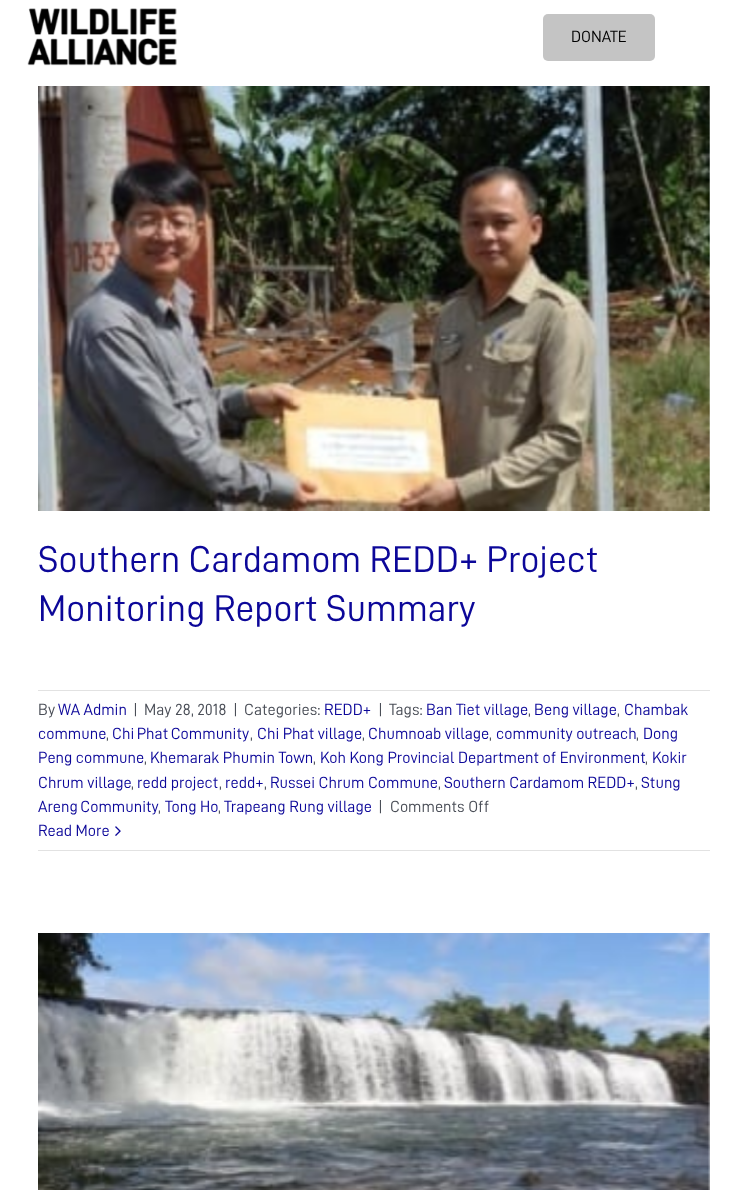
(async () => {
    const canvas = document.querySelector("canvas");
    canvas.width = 747;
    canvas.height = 1190;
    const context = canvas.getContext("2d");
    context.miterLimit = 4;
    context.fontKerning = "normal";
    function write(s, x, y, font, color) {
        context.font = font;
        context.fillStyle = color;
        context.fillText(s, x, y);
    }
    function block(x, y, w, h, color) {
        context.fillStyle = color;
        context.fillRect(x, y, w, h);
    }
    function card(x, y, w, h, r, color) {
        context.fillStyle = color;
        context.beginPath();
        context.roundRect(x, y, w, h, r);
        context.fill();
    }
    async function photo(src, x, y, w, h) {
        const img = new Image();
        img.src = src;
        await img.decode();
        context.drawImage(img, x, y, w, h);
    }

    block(0, 0, 747, 1190, "rgb(255, 255, 255)");
    await photo("media/1.png", 27, 8, 150, 58);
    card(543, 14, 112, 47, 5, "rgb(224, 224, 224)");
    card(543, 14, 112, 47, 5, "rgba(0, 0, 0, 0.12)");
    write("DONATE", 571, 42, "16.25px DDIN", "rgb(0, 0, 0)");
    await photo("media/2.png", 38, 86, 672, 425);
    write("Southern Cardamom REDD+ Project", 38, 572, "37.5px DDIN", "rgb(12, 7, 153)");
    write("Monitoring Report Summary", 38, 621, "37.5px DDIN", "rgb(12, 7, 153)");
    block(38, 690, 672, 1, "rgb(226, 226, 226)");
    block(38, 850, 672, 1, "rgb(226, 226, 226)");
    write("By", 38, 715, "16.25px DDIN", "rgb(74, 78, 87)");
    write("WA Admin", 58, 715, "16.25px DDIN", "rgb(12, 7, 153)");
    write("|", 133, 715, "16.25px DDIN", "rgb(74, 78, 87)");
    write("May 28, 2018", 144, 715, "16.25px DDIN", "rgb(74, 78, 87)");
    write("|", 233, 715, "16.25px DDIN", "rgb(74, 78, 87)");
    write("Categories:", 244, 715, "16.25px DDIN", "rgb(74, 78, 87)");
    write("REDD+", 324, 715, "16.25px DDIN", "rgb(12, 7, 153)");
    write("|", 378, 715, "16.25px DDIN", "rgb(74, 78, 87)");
    write("Tags:", 389, 715, "16.25px DDIN", "rgb(74, 78, 87)");
    write("Ban Tiet village", 426, 715, "16.25px DDIN", "rgb(12, 7, 153)");
    write(",", 528, 715, "16.25px DDIN", "rgb(74, 78, 87)");
    write("Beng village", 534, 715, "16.25px DDIN", "rgb(12, 7, 153)");
    write(",", 617, 715, "16.25px DDIN", "rgb(74, 78, 87)");
    write("Chambak", 624, 715, "16.25px DDIN", "rgb(12, 7, 153)");
    write("commune", 38, 739, "16.25px DDIN", "rgb(12, 7, 153)");
    write(",", 106, 739, "16.25px DDIN", "rgb(74, 78, 87)");
    context.wordSpacing = "-1px";
    write("Chi Phat Community", 112, 739, "16.25px DDIN", "rgb(12, 7, 153)");
    context.wordSpacing = "0px";
    write(",", 250, 739, "16.25px DDIN", "rgb(74, 78, 87)");
    write("Chi Phat village", 257, 739, "16.25px DDIN", "rgb(12, 7, 153)");
    write(",", 362, 739, "16.25px DDIN", "rgb(74, 78, 87)");
    write("Chumnoab village", 368, 739, "16.25px DDIN", "rgb(12, 7, 153)");
    write(",", 489, 739, "16.25px DDIN", "rgb(74, 78, 87)");
    write("community outreach", 496, 739, "16.25px DDIN", "rgb(12, 7, 153)");
    write(",", 636, 739, "16.25px DDIN", "rgb(74, 78, 87)");
    write("Dong", 643, 739, "16.25px DDIN", "rgb(12, 7, 153)");
    write("Peng commune", 38, 763, "16.25px DDIN", "rgb(12, 7, 153)");
    write(",", 144, 763, "16.25px DDIN", "rgb(74, 78, 87)");
    write("Khemarak Phumin Town", 150, 763, "16.25px DDIN", "rgb(12, 7, 153)");
    write(",", 313, 763, "16.25px DDIN", "rgb(74, 78, 87)");
    write("Koh Kong Provincial Department of Environment", 320, 763, "16.25px DDIN", "rgb(12, 7, 153)");
    write(",", 645, 763, "16.25px DDIN", "rgb(74, 78, 87)");
    write("Kokir", 652, 763, "16.25px DDIN", "rgb(12, 7, 153)");
    write("Chrum village", 38, 788, "16.25px DDIN", "rgb(12, 7, 153)");
    write(",", 131, 788, "16.25px DDIN", "rgb(74, 78, 87)");
    write("redd project", 137, 788, "16.25px DDIN", "rgb(12, 7, 153)");
    write(",", 219, 788, "16.25px DDIN", "rgb(74, 78, 87)");
    write("redd+", 225, 788, "16.25px DDIN", "rgb(12, 7, 153)");
    write(",", 264, 788, "16.25px DDIN", "rgb(74, 78, 87)");
    write("Russei Chrum Commune", 270, 788, "16.25px DDIN", "rgb(12, 7, 153)");
    write(",", 438, 788, "16.25px DDIN", "rgb(74, 78, 87)");
    write("Southern Cardamom REDD+", 444, 788, "16.25px DDIN", "rgb(12, 7, 153)");
    write(",", 635, 788, "16.25px DDIN", "rgb(74, 78, 87)");
    write("Stung", 641, 788, "16.25px DDIN", "rgb(12, 7, 153)");
    context.wordSpacing = "-1px";
    write("Areng Community", 38, 812, "16.25px DDIN", "rgb(12, 7, 153)");
    context.wordSpacing = "0px";
    write(",", 158, 812, "16.25px DDIN", "rgb(74, 78, 87)");
    write("Tong Ho", 165, 812, "16.25px DDIN", "rgb(12, 7, 153)");
    write(",", 218, 812, "16.25px DDIN", "rgb(74, 78, 87)");
    write("Trapeang Rung village", 224, 812, "16.25px DDIN", "rgb(12, 7, 153)");
    write("|", 378, 812, "16.25px DDIN", "rgb(74, 78, 87)");
    write("Comments Off", 390, 812, "16.25px DDIN", "rgb(74, 78, 87)");
    write("Read More", 38, 836, "16.25px DDIN", "rgb(12, 7, 153)");
    await photo("media/3.png", 115, 826, 6, 10);
    await photo("media/4.png", 38, 933, 672, 257);
})();
